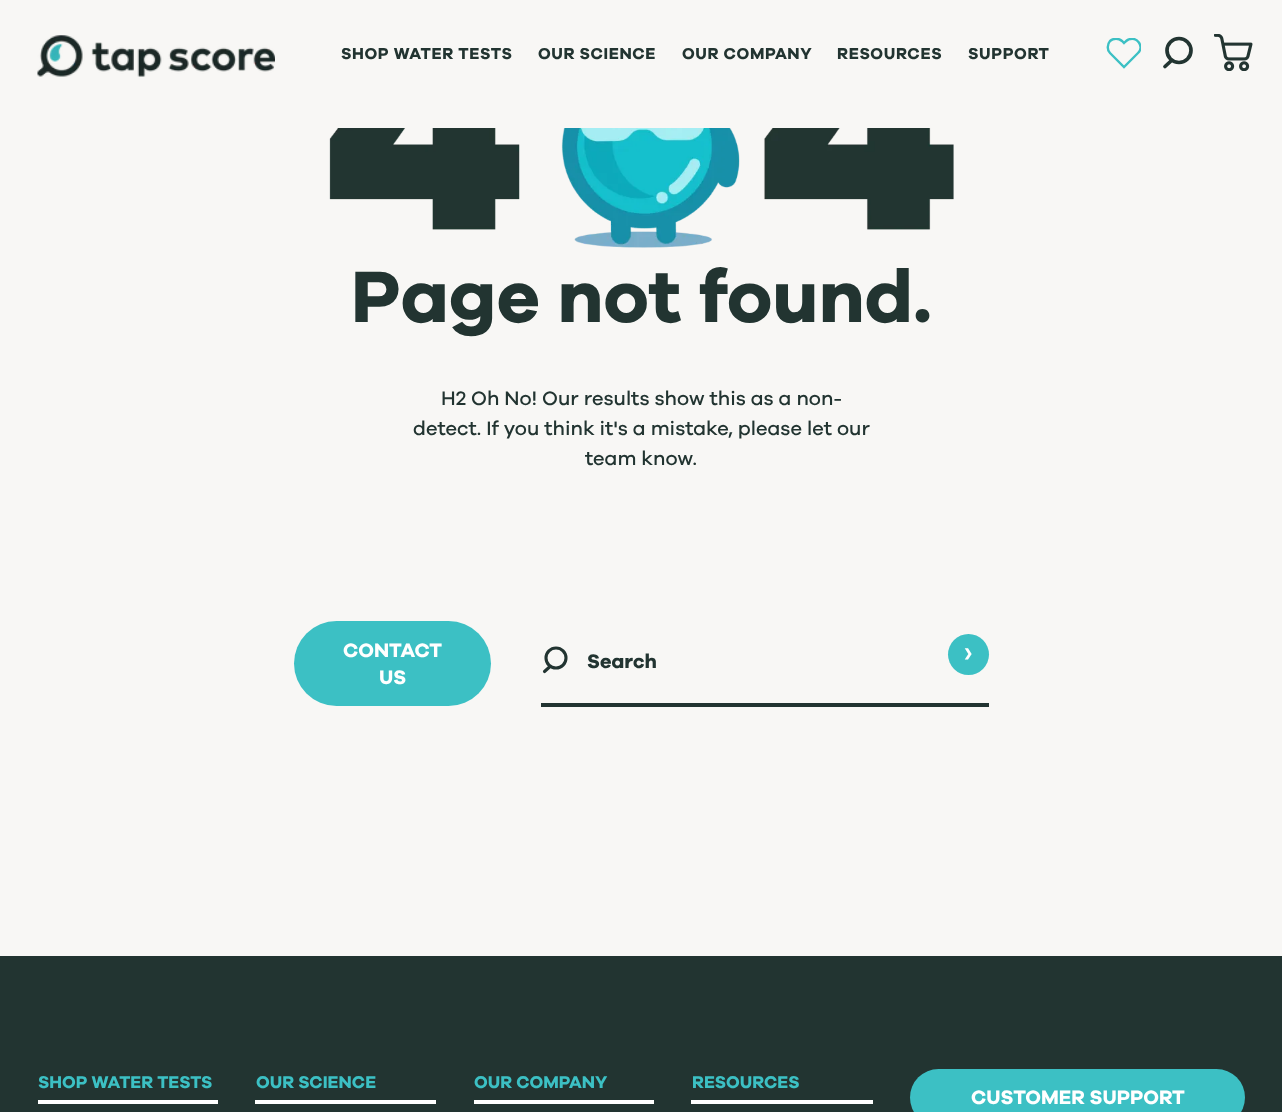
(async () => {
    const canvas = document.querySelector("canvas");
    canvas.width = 1282;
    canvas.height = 1112;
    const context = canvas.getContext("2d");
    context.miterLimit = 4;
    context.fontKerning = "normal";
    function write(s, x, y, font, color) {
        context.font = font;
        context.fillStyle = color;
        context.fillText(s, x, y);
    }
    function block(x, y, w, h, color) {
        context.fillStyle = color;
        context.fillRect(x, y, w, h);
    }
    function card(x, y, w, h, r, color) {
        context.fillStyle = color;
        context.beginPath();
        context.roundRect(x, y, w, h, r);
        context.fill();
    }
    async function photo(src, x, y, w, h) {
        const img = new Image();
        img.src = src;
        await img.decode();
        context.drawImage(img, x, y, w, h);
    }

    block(0, 0, 1282, 1112, "rgb(248, 247, 245)");
    await photo("media/1.png", 37, 35, 238, 42);
    context.letterSpacing = "0.6px";
    write("SHOP WATER TESTS", 341, 59, "bold 16.25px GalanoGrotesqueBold", "rgb(34, 52, 49)");
    write("OUR SCIENCE", 538, 59, "bold 16.25px GalanoGrotesqueBold", "rgb(34, 52, 49)");
    write("OUR COMPANY", 682, 59, "bold 16.25px GalanoGrotesqueBold", "rgb(34, 52, 49)");
    write("RESOURCES", 837, 59, "bold 16.25px GalanoGrotesqueBold", "rgb(34, 52, 49)");
    write("SUPPORT", 968, 59, "bold 16.25px GalanoGrotesqueBold", "rgb(34, 52, 49)");
    context.save();
    context.beginPath();
    context.rect(1106, 38, 35, 31);
    context.clip();
    context.beginPath();
    context.moveTo(1138, 53);
    context.lineTo(1124, 67);
    context.lineTo(1110, 53);
    context.bezierCurveTo(1107, 50, 1107, 44.5, 1110, 41);
    context.bezierCurveTo(1113.5, 38, 1118.5, 38, 1122, 41);
    context.lineTo(1124, 43);
    context.bezierCurveTo(1125.5, 41.5, 1127, 40, 1128.5, 39.5);
    context.bezierCurveTo(1137, 36, 1144.5, 46.5, 1138, 53);
    context.closePath();
    context.strokeStyle = "rgb(60, 192, 196)";
    context.lineWidth = 2.4;
    context.stroke();
    context.restore();
    context.beginPath();
    context.arc(1179, 50.5, 12, 0, Math.PI * 2);
    context.strokeStyle = "rgb(34, 52, 49)";
    context.lineWidth = 3.7;
    context.stroke();
    context.beginPath();
    context.moveTo(1171, 61);
    context.lineTo(1165, 66.5);
    context.lineCap = "round";
    context.stroke();
    await photo("media/2.png", 1214, 34, 39, 37);
    await photo("media/3.png", 329, 128, 625, 120);
    context.letterSpacing = "0px";
    write("Page not found.", 351, 322, "bold 75px GalanoGrotesqueBold", "rgb(34, 52, 49)");
    write("H2 Oh No! Our results show this as a non-", 441, 405, "500 20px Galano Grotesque", "rgb(34, 52, 49)");
    write("detect. If you think it's a mistake, please let our", 413, 435, "500 20px Galano Grotesque", "rgb(34, 52, 49)");
    write("team know.", 585, 465, "500 20px Galano Grotesque", "rgb(34, 52, 49)");
    card(294, 621, 197, 85, 42.5, "rgb(60, 192, 196)");
    write("CONTACT", 343, 657, "bold 20px GalanoGrotesqueBold", "rgb(255, 255, 255)");
    write("US", 379, 684, "bold 20px GalanoGrotesqueBold", "rgb(255, 255, 255)");
    block(541, 703, 448, 4, "rgb(34, 52, 49)");
    context.beginPath();
    context.arc(556, 658, 10, 0, Math.PI * 2);
    context.lineWidth = 3.1;
    context.stroke();
    context.beginPath();
    context.moveTo(549.5, 667);
    context.lineTo(544.5, 671.5);
    context.stroke();
    write("Search", 587, 668, "bold 20px GalanoGrotesqueBold", "rgb(34, 52, 49)");
    context.fillStyle = "rgb(60, 192, 196)";
    context.beginPath();
    context.arc(968.5, 654.5, 20.5, 0, Math.PI * 2);
    context.fill();
    write("›", 964, 662, "500 31px Galano Grotesque", "rgb(255, 255, 255)");
    block(0, 956, 1282, 156, "rgb(34, 52, 49)");
    block(38, 1100, 180, 4, "rgb(255, 255, 255)");
    write("SHOP WATER TESTS", 38, 1088, "bold 17.5px GalanoGrotesqueBold", "rgb(60, 192, 196)");
    block(255, 1100, 181, 4, "rgb(255, 255, 255)");
    write("OUR SCIENCE", 256, 1088, "bold 17.5px GalanoGrotesqueBold", "rgb(60, 192, 196)");
    block(474, 1100, 180, 4, "rgb(255, 255, 255)");
    write("OUR COMPANY", 474, 1088, "bold 17.5px GalanoGrotesqueBold", "rgb(60, 192, 196)");
    block(691, 1100, 182, 4, "rgb(255, 255, 255)");
    write("RESOURCES", 692, 1088, "bold 17.5px GalanoGrotesqueBold", "rgb(60, 192, 196)");
    card(910, 1069, 335, 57, 28.5, "rgb(60, 192, 196)");
    write("CUSTOMER SUPPORT", 971, 1104, "bold 20px GalanoGrotesqueBold", "rgb(255, 255, 255)");
})();
